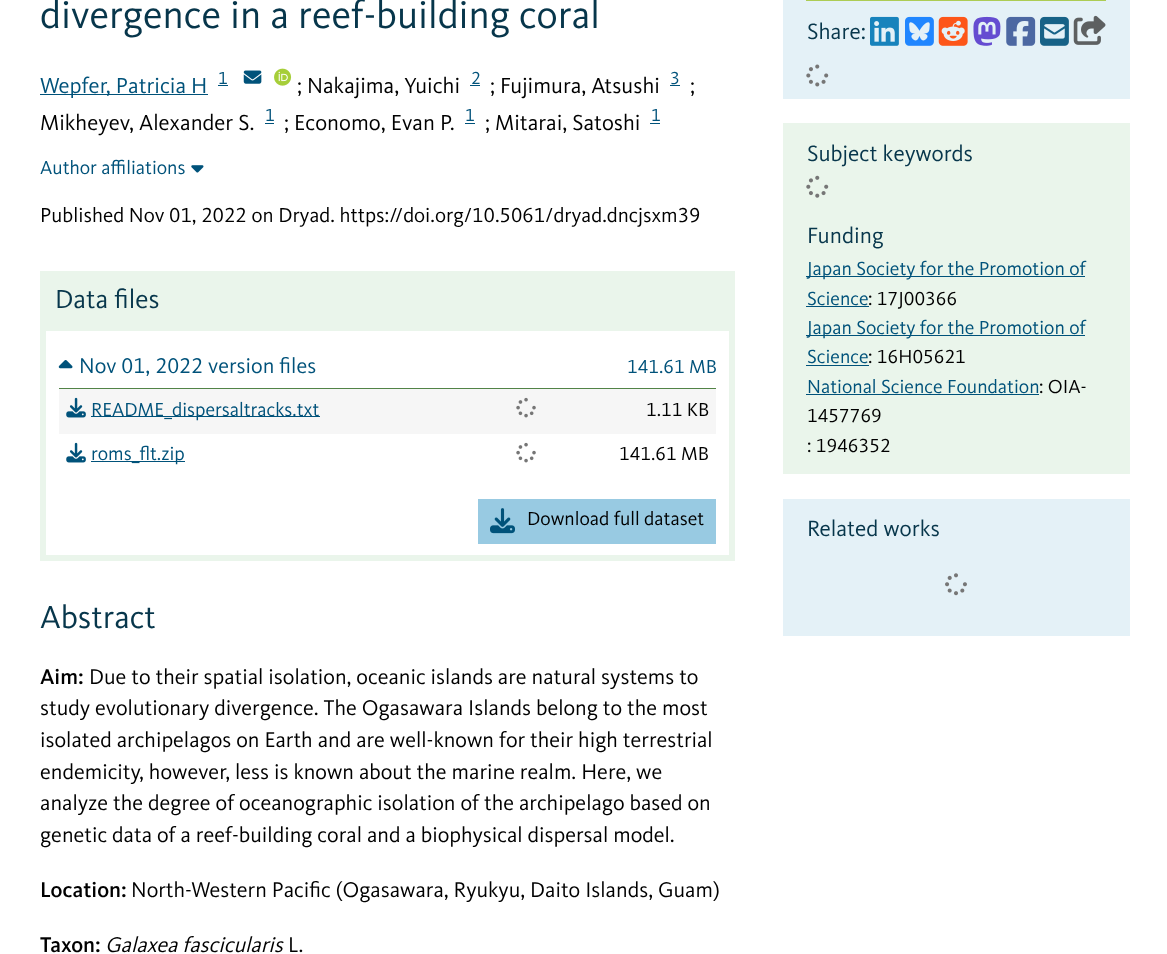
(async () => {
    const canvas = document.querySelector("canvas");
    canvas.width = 1167;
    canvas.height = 954;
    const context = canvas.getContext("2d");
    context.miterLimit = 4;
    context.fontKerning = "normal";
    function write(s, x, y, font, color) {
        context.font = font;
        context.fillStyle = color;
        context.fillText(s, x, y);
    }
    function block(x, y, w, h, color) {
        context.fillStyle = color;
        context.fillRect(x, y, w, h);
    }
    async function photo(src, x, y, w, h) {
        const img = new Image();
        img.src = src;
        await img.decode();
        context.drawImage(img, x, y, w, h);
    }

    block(0, 0, 1167, 954, "rgb(255, 255, 255)");
    write("divergence in a reef-building coral", 40, 28, "40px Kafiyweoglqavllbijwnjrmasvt", "rgb(7, 54, 75)");
    block(40, 94, 168, 1, "rgb(0, 82, 122)");
    write("Wepfer, Patricia H", 40, 93, "22.5px Kafiyweoglqavllbijwnjrmasvt", "rgb(0, 82, 122)");
    write("1", 218, 84, "18px Kafiyweoglqavllbijwnjrmasvt", "rgb(0, 82, 122)");
    block(218, 85, 10, 1, "rgb(0, 82, 122)");
    await photo("media/1.png", 243, 70, 19, 14);
    await photo("media/2.png", 274, 68, 18, 18);
    write(";", 297, 93, "22px Kafiyweoglqavllbijwnjrmasvt", "rgb(0, 0, 0)");
    write("Nakajima, Yuichi", 307, 93, "22.5px Kafiyweoglqavllbijwnjrmasvt", "rgb(0, 0, 0)");
    write("2", 471, 84, "18px Kafiyweoglqavllbijwnjrmasvt", "rgb(0, 82, 122)");
    block(470, 85, 10, 1, "rgb(0, 82, 122)");
    write(";", 490, 93, "22px Kafiyweoglqavllbijwnjrmasvt", "rgb(0, 0, 0)");
    write("Fujimura, Atsushi", 500, 93, "22.5px Kafiyweoglqavllbijwnjrmasvt", "rgb(0, 0, 0)");
    write("3", 670, 84, "18px Kafiyweoglqavllbijwnjrmasvt", "rgb(0, 82, 122)");
    block(670, 85, 10, 1, "rgb(0, 82, 122)");
    write(";", 690, 93, "22px Kafiyweoglqavllbijwnjrmasvt", "rgb(0, 0, 0)");
    write("Mikheyev, Alexander S.", 40, 130, "22.5px Kafiyweoglqavllbijwnjrmasvt", "rgb(0, 0, 0)");
    write("1", 265, 121, "18px Kafiyweoglqavllbijwnjrmasvt", "rgb(0, 82, 122)");
    block(265, 123, 9, 1, "rgb(0, 82, 122)");
    write(";", 284, 130, "22px Kafiyweoglqavllbijwnjrmasvt", "rgb(0, 0, 0)");
    write("Economo, Evan P.", 294, 130, "22.5px Kafiyweoglqavllbijwnjrmasvt", "rgb(0, 0, 0)");
    write("1", 465, 121, "18px Kafiyweoglqavllbijwnjrmasvt", "rgb(0, 82, 122)");
    block(465, 123, 10, 1, "rgb(0, 82, 122)");
    write(";", 485, 130, "22px Kafiyweoglqavllbijwnjrmasvt", "rgb(0, 0, 0)");
    write("Mitarai, Satoshi", 495, 130, "22.5px Kafiyweoglqavllbijwnjrmasvt", "rgb(0, 0, 0)");
    write("1", 651, 121, "18px Kafiyweoglqavllbijwnjrmasvt", "rgb(0, 82, 122)");
    block(650, 123, 10, 1, "rgb(0, 82, 122)");
    write("Author affiliations", 40, 174, "19.6px Kafiyweoglqavllbijwnjrmasvt", "rgb(0, 82, 122)");
    await photo("media/3.png", 191, 165, 13, 8);
    write("Published Nov 01, 2022 on Dryad. https://doi.org/10.5061/dryad.dncjsxm39", 40, 222, "20.9px Kafiyweoglqavllbijwnjrmasvt", "rgb(0, 0, 0)");
    block(40, 271, 695, 60, "rgb(234, 245, 235)");
    write("Data files", 55, 308, "27px Kafiyweoglqavllbijwnjrmasvt", "rgb(7, 54, 75)");
    block(729, 331, 6, 230, "rgb(234, 245, 235)");
    block(40, 555, 695, 6, "rgb(234, 245, 235)");
    block(40, 331, 6, 230, "rgb(234, 245, 235)");
    block(59, 388, 657, 1, "rgb(82, 131, 70)");
    await photo("media/4.png", 58, 360, 15, 9);
    write("Nov 01, 2022 version files", 79, 373, "22px Kafiyweoglqavllbijwnjrmasvt", "rgb(0, 82, 122)");
    write("141.61 MB", 627, 373, "19.6px Kafiyweoglqavllbijwnjrmasvt", "rgb(0, 82, 122)");
    block(59, 389, 657, 45, "rgb(246, 246, 246)");
    await photo("media/5.png", 66, 397, 20, 21);
    block(91, 416, 229, 1, "rgb(0, 82, 122)");
    write("README_dispersaltracks.txt", 91, 416, "19.6px Kafiyweoglqavllbijwnjrmasvt", "rgb(0, 82, 122)");
    await photo("media/6.png", 516, 397, 20, 21);
    write("1.11 KB", 646, 416, "19.6px Kafiyweoglqavllbijwnjrmasvt", "rgb(0, 0, 0)");
    await photo("media/7.png", 66, 442, 20, 21);
    block(91, 461, 94, 1, "rgb(0, 82, 122)");
    write("roms_flt.zip", 91, 460, "19.6px Kafiyweoglqavllbijwnjrmasvt", "rgb(0, 82, 122)");
    await photo("media/8.png", 516, 442, 20, 21);
    write("141.61 MB", 619, 460, "19.6px Kafiyweoglqavllbijwnjrmasvt", "rgb(0, 0, 0)");
    block(478, 499, 238, 45, "rgb(152, 202, 226)");
    await photo("media/9.png", 490, 508, 25, 26);
    write("Download full dataset", 527, 525, "19.6px Kafiyweoglqavllbijwnjrmasvt", "rgb(0, 0, 0)");
    write("Abstract", 40, 628, "33px Kafiyweoglqavllbijwnjrmasvt", "rgb(7, 54, 75)");
    write("Aim:", 40, 684, "500 22px 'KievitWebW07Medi'", "rgb(0, 0, 0)");
    write("Due to their spatial isolation, oceanic islands are natural systems to", 89, 684, "22px Kafiyweoglqavllbijwnjrmasvt", "rgb(0, 0, 0)");
    write("study evolutionary divergence. The Ogasawara Islands belong to the most", 40, 715, "22px Kafiyweoglqavllbijwnjrmasvt", "rgb(0, 0, 0)");
    write("isolated archipelagos on Earth and are well-known for their high terrestrial", 40, 747, "22px Kafiyweoglqavllbijwnjrmasvt", "rgb(0, 0, 0)");
    write("endemicity, however, less is known about the marine realm. Here, we", 40, 779, "22px Kafiyweoglqavllbijwnjrmasvt", "rgb(0, 0, 0)");
    write("analyze the degree of oceanographic isolation of the archipelago based on", 40, 810, "22px Kafiyweoglqavllbijwnjrmasvt", "rgb(0, 0, 0)");
    write("genetic data of a reef-building coral and a biophysical dispersal model.", 40, 842, "22px Kafiyweoglqavllbijwnjrmasvt", "rgb(0, 0, 0)");
    write("Location:", 40, 897, "500 22px 'KievitWebW07Medi'", "rgb(0, 0, 0)");
    write("North-Western Pacific (Ogasawara, Ryukyu, Daito Islands, Guam)", 131, 897, "22px Kafiyweoglqavllbijwnjrmasvt", "rgb(0, 0, 0)");
    write("Taxon:", 40, 952, "500 22px 'KievitWebW07Medi'", "rgb(0, 0, 0)");
    write("Galaxea fascicularis", 105, 952, "italic 22px Kafiyweoglqavllbijwnjrmasvt", "rgb(0, 0, 0)");
    write("L.", 288, 952, "22px Kafiyweoglqavllbijwnjrmasvt", "rgb(0, 0, 0)");
    block(783, 0, 347, 99, "rgb(228, 241, 247)");
    block(806, 0, 300, 1, "rgb(172, 204, 84)");
    write("Share:", 807, 39, "23px Kafiyweoglqavllbijwnjrmasvt", "rgb(7, 54, 75)");
    await photo("media/10.png", 870, 16, 29, 30);
    await photo("media/11.png", 905, 16, 29, 30);
    await photo("media/12.png", 938, 16, 30, 30);
    await photo("media/13.png", 973, 16, 28, 30);
    await photo("media/14.png", 1006, 16, 30, 30);
    await photo("media/15.png", 1040, 16, 29, 30);
    await photo("media/16.png", 1073, 15, 33, 30);
    await photo("media/17.png", 806, 64, 23, 23);
    block(783, 123, 347, 351, "rgb(234, 245, 235)");
    write("Subject keywords", 807, 161, "23px Kafiyweoglqavllbijwnjrmasvt", "rgb(7, 54, 75)");
    await photo("media/18.png", 806, 175, 23, 23);
    write("Funding", 807, 243, "23px Kafiyweoglqavllbijwnjrmasvt", "rgb(7, 54, 75)");
    block(806, 276, 279, 1, "rgb(0, 82, 122)");
    write("Japan Society for the Promotion of", 807, 275, "19.6px Kafiyweoglqavllbijwnjrmasvt", "rgb(0, 82, 122)");
    write("Science", 807, 305, "19.6px Kafiyweoglqavllbijwnjrmasvt", "rgb(0, 82, 122)");
    block(806, 306, 63, 1, "rgb(0, 82, 122)");
    write(": 17J00366", 868, 305, "19.6px Kafiyweoglqavllbijwnjrmasvt", "rgb(0, 0, 0)");
    block(806, 335, 279, 1, "rgb(0, 82, 122)");
    write("Japan Society for the Promotion of", 807, 334, "19.6px Kafiyweoglqavllbijwnjrmasvt", "rgb(0, 82, 122)");
    write("Science", 807, 363, "19.6px Kafiyweoglqavllbijwnjrmasvt", "rgb(0, 82, 122)");
    block(806, 365, 63, 1, "rgb(0, 82, 122)");
    write(": 16H05621", 868, 363, "19.6px Kafiyweoglqavllbijwnjrmasvt", "rgb(0, 0, 0)");
    write("National Science Foundation", 807, 393, "19.6px Kafiyweoglqavllbijwnjrmasvt", "rgb(0, 82, 122)");
    block(806, 394, 233, 1, "rgb(0, 82, 122)");
    write(": OIA-", 1039, 393, "19.6px Kafiyweoglqavllbijwnjrmasvt", "rgb(0, 0, 0)");
    write("1457769", 807, 422, "19.6px Kafiyweoglqavllbijwnjrmasvt", "rgb(0, 0, 0)");
    write(": 1946352", 807, 452, "19.6px Kafiyweoglqavllbijwnjrmasvt", "rgb(0, 0, 0)");
    block(783, 499, 347, 137, "rgb(228, 241, 247)");
    write("Related works", 807, 536, "23px Kafiyweoglqavllbijwnjrmasvt", "rgb(7, 54, 75)");
    await photo("media/19.png", 945, 573, 22, 23);
})();
